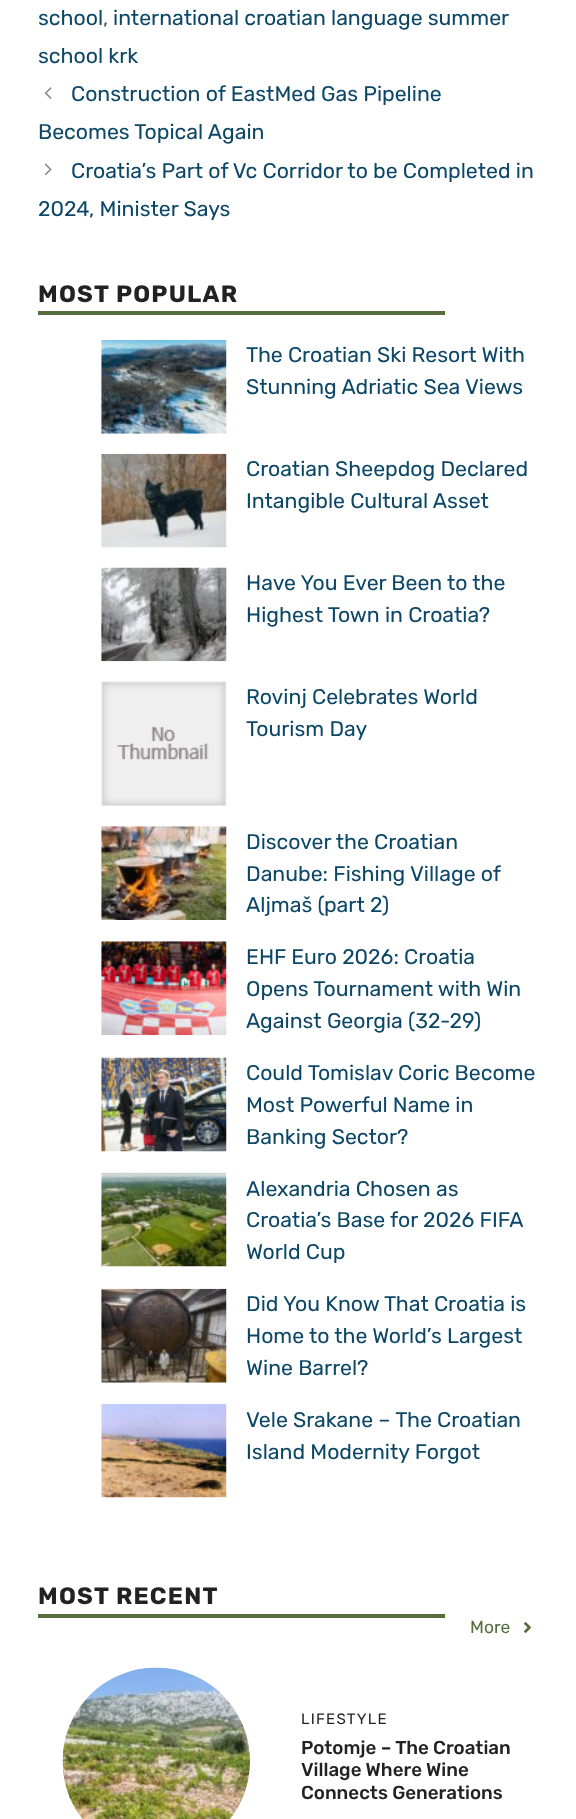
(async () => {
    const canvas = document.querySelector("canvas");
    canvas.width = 576;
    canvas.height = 1819;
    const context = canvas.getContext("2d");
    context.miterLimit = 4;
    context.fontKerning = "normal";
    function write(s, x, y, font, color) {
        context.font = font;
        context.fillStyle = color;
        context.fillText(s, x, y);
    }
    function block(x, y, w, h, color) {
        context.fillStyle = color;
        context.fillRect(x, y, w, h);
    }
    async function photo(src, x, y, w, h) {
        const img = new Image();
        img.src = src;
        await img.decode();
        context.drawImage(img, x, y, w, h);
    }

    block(0, 0, 576, 1819, "rgb(255, 255, 255)");
    write("school", 38, 25, "21.25px Rubik", "rgb(12, 71, 103)");
    write(",", 103, 25, "21.25px Rubik", "rgb(87, 87, 96)");
    write("international croatian language summer", 113, 25, "21.25px Rubik", "rgb(12, 71, 103)");
    write("school krk", 38, 63, "21.25px Rubik", "rgb(12, 71, 103)");
    await photo("media/1.png", 44, 87, 8, 12);
    write("Construction of EastMed Gas Pipeline", 71, 101, "21.25px Rubik", "rgb(12, 71, 103)");
    write("Becomes Topical Again", 38, 139, "21.25px Rubik", "rgb(12, 71, 103)");
    await photo("media/2.png", 44, 163, 8, 13);
    write("Croatia’s Part of Vc Corridor to be Completed in", 71, 178, "21.25px Rubik", "rgb(12, 71, 103)");
    write("2024, Minister Says", 38, 216, "21.25px Rubik", "rgb(12, 71, 103)");
    context.letterSpacing = "1.25px";
    write("MOST POPULAR", 38, 302, "bold 23.75px Rubik", "rgb(34, 34, 34)");
    block(38, 311, 407, 4, "rgb(86, 110, 61)");
    await photo("media/3.png", 101, 340, 126, 94);
    context.letterSpacing = "0px";
    write("The Croatian Ski Resort With", 246, 362, "21.25px Rubik", "rgb(12, 71, 103)");
    write("Stunning Adriatic Sea Views", 246, 394, "21.25px Rubik", "rgb(12, 71, 103)");
    await photo("media/4.png", 101, 453, 126, 95);
    write("Croatian Sheepdog Declared", 246, 476, "21.25px Rubik", "rgb(12, 71, 103)");
    write("Intangible Cultural Asset", 246, 508, "21.25px Rubik", "rgb(12, 71, 103)");
    await photo("media/5.png", 101, 567, 126, 95);
    write("Have You Ever Been to the", 246, 590, "21.25px Rubik", "rgb(12, 71, 103)");
    write("Highest Town in Croatia?", 246, 622, "21.25px Rubik", "rgb(12, 71, 103)");
    await photo("media/6.png", 101, 681, 126, 125);
    write("Rovinj Celebrates World", 246, 704, "21.25px Rubik", "rgb(12, 71, 103)");
    write("Tourism Day", 246, 736, "21.25px Rubik", "rgb(12, 71, 103)");
    await photo("media/7.png", 101, 826, 126, 94);
    write("Discover the Croatian", 246, 849, "21.25px Rubik", "rgb(12, 71, 103)");
    write("Danube: Fishing Village of", 246, 881, "21.25px Rubik", "rgb(12, 71, 103)");
    write("Aljmaš (part 2)", 246, 912, "21.25px Rubik", "rgb(12, 71, 103)");
    await photo("media/8.png", 101, 941, 126, 94);
    write("EHF Euro 2026: Croatia", 246, 964, "21.25px Rubik", "rgb(12, 71, 103)");
    write("Opens Tournament with Win", 246, 996, "21.25px Rubik", "rgb(12, 71, 103)");
    write("Against Georgia (32-29)", 246, 1028, "21.25px Rubik", "rgb(12, 71, 103)");
    await photo("media/9.png", 101, 1057, 126, 95);
    write("Could Tomislav Coric Become", 246, 1080, "21.25px Rubik", "rgb(12, 71, 103)");
    write("Most Powerful Name in", 246, 1112, "21.25px Rubik", "rgb(12, 71, 103)");
    write("Banking Sector?", 246, 1144, "21.25px Rubik", "rgb(12, 71, 103)");
    await photo("media/10.png", 101, 1172, 126, 95);
    write("Alexandria Chosen as", 246, 1196, "21.25px Rubik", "rgb(12, 71, 103)");
    write("Croatia’s Base for 2026 FIFA", 246, 1227, "21.25px Rubik", "rgb(12, 71, 103)");
    write("World Cup", 246, 1259, "21.25px Rubik", "rgb(12, 71, 103)");
    await photo("media/11.png", 101, 1288, 126, 95);
    write("Did You Know That Croatia is", 246, 1311, "21.25px Rubik", "rgb(12, 71, 103)");
    write("Home to the World’s Largest", 246, 1343, "21.25px Rubik", "rgb(12, 71, 103)");
    write("Wine Barrel?", 246, 1375, "21.25px Rubik", "rgb(12, 71, 103)");
    await photo("media/12.png", 101, 1403, 126, 95);
    write("Vele Srakane – The Croatian", 246, 1427, "21.25px Rubik", "rgb(12, 71, 103)");
    write("Island Modernity Forgot", 246, 1459, "21.25px Rubik", "rgb(12, 71, 103)");
    context.letterSpacing = "1.25px";
    write("MOST RECENT", 38, 1604, "bold 23.75px Rubik", "rgb(34, 34, 34)");
    block(38, 1614, 407, 4, "rgb(86, 110, 61)");
    context.letterSpacing = "0px";
    write("More", 470, 1633, "17.5px Rubik", "rgb(86, 110, 61)");
    await photo("media/13.png", 524, 1622, 7, 11);
    await photo("media/14.png", 62, 1667, 188, 152);
    context.letterSpacing = "1.25px";
    write("LIFESTYLE", 301, 1724, "15px Rubik", "rgb(34, 34, 34)");
    context.letterSpacing = "0px";
    write("Potomje – The Croatian", 301, 1754, "500 18.75px Rubik", "rgb(34, 34, 34)");
    write("Village Where Wine", 301, 1776, "500 18.75px Rubik", "rgb(34, 34, 34)");
    write("Connects Generations", 301, 1799, "500 18.75px Rubik", "rgb(34, 34, 34)");
})();
